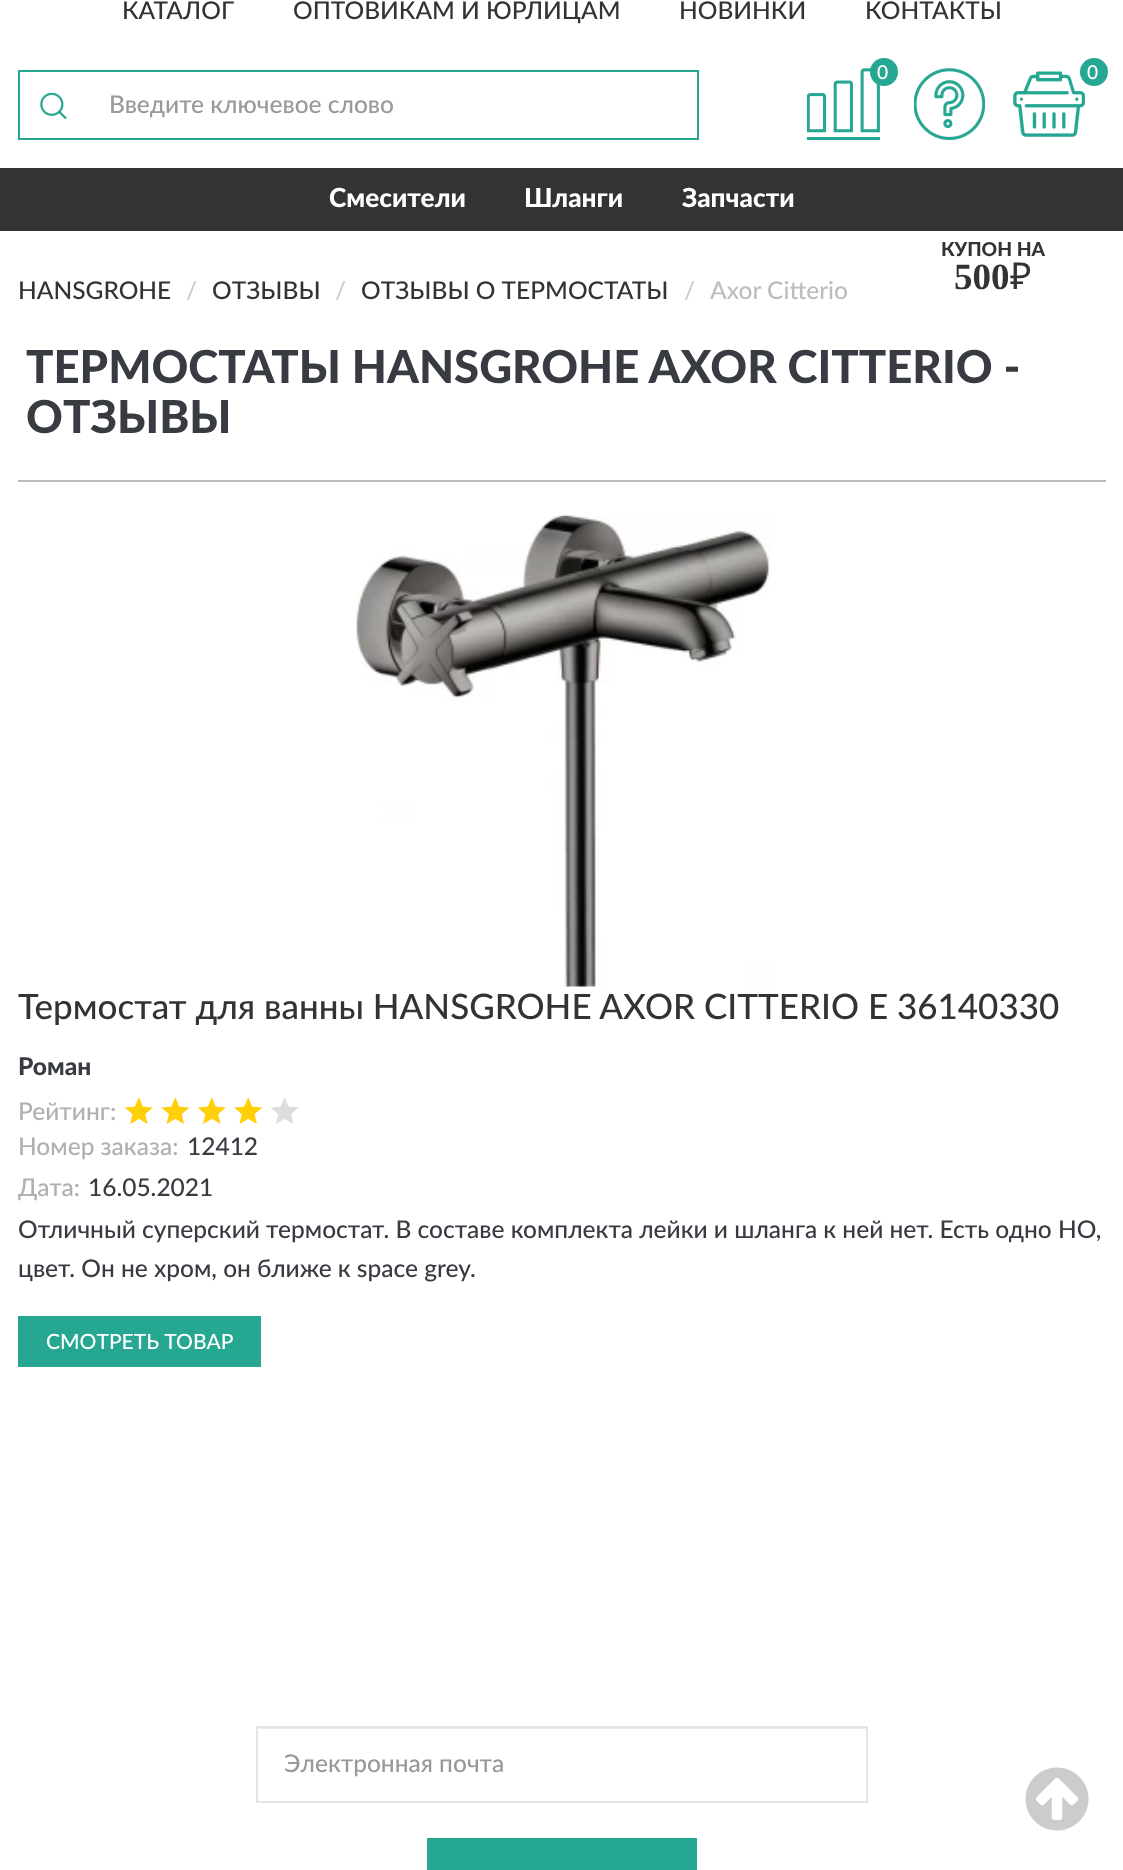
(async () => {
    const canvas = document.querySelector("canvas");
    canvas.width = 1123;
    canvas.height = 1870;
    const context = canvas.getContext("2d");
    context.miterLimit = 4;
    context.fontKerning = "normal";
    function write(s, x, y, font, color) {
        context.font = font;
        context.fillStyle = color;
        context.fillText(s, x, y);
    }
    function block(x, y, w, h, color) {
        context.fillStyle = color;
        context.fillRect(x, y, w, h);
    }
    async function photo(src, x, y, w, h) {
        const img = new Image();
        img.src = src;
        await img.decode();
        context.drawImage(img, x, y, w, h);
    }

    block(0, 0, 1123, 1870, "rgb(255, 255, 255)");
    write("КАТАЛОГ", 122, 19, "500 24.5px Lato", "rgb(51, 51, 51)");
    write("ОПТОВИКАМ И ЮРЛИЦАМ", 293, 19, "500 24.5px Lato", "rgb(51, 51, 51)");
    write("НОВИНКИ", 679, 19, "500 24.5px Lato", "rgb(51, 51, 51)");
    write("КОНТАКТЫ", 865, 19, "500 24.5px Lato", "rgb(51, 51, 51)");
    await photo("media/1.png", 807, 68, 73, 72);
    context.fillStyle = "rgb(38, 167, 146)";
    context.beginPath();
    context.arc(884, 72, 14, 0, Math.PI * 2);
    context.fill();
    write("0", 877, 79, "500 19.25px Lato", "rgb(255, 255, 255)");
    await photo("media/2.png", 914, 68, 71, 72);
    await photo("media/3.png", 1013, 71, 72, 66);
    context.fillStyle = "rgb(38, 167, 146)";
    context.beginPath();
    context.arc(1094, 72, 14, 0, Math.PI * 2);
    context.fill();
    write("0", 1087, 79, "500 19.25px Lato", "rgb(255, 255, 255)");
    await photo("media/4.png", 40, 93, 27, 26);
    block(18, 70, 680, 2, "rgb(38, 167, 146)");
    block(18, 138, 70, 2, "rgb(38, 167, 146)");
    block(18, 70, 2, 70, "rgb(38, 167, 146)");
    block(697, 70, 2, 70, "rgb(38, 167, 146)");
    block(88, 138, 610, 2, "rgb(38, 167, 146)");
    write("Введите ключевое слово", 109, 113, "500 24.5px Lato", "rgb(153, 153, 153)");
    block(0, 168, 1123, 63, "rgb(51, 51, 51)");
    write("Смесители", 329, 207, "900 26.25px Lato", "rgb(255, 255, 255)");
    write("Шланги", 524, 207, "900 26.25px Lato", "rgb(255, 255, 255)");
    write("Запчасти", 682, 207, "900 26.25px Lato", "rgb(255, 255, 255)");
    write("КУПОН НА", 941, 256, "900 19.25px Lato", "rgb(51, 51, 51)");
    write("500", 954, 289, "bold 37px Liberation Serif", "rgb(51, 51, 51)");
    write("₽", 1010, 289, "37px Noto Sans", "rgb(51, 51, 51)");
    write("HANSGROHE", 18, 299, "500 24.5px Lato", "rgb(51, 51, 51)");
    write("/", 186, 299, "500 24.5px Lato", "rgb(204, 204, 204)");
    write("ОТЗЫВЫ", 212, 299, "500 24.5px Lato", "rgb(51, 51, 51)");
    write("/", 335, 299, "500 24.5px Lato", "rgb(204, 204, 204)");
    write("ОТЗЫВЫ О ТЕРМОСТАТЫ", 361, 299, "500 24.5px Lato", "rgb(51, 51, 51)");
    write("/", 684, 299, "500 24.5px Lato", "rgb(204, 204, 204)");
    write("Axor Citterio", 710, 299, "500 24.5px Lato", "rgb(189, 189, 189)");
    write("ТЕРМОСТАТЫ HANSGROHE AXOR CITTERIO -", 26, 383, "900 45.5px Lato", "rgb(57, 59, 66)");
    write("ОТЗЫВЫ", 26, 433, "900 45.5px Lato", "rgb(57, 59, 66)");
    block(18, 480, 1088, 2, "rgb(186, 187, 189)");
    await photo("media/5.png", 355, 515, 416, 472);
    write("Термостат для ванны HANSGROHE AXOR CITTERIO E 36140330", 18, 1019, "500 35px Lato", "rgb(51, 51, 51)");
    write("Роман", 18, 1075, "900 24.5px Lato", "rgb(57, 59, 66)");
    write("Рейтинг:", 18, 1120, "500 24.5px Lato", "rgb(176, 176, 176)");
    await photo("media/6.png", 124, 1097, 175, 27);
    write("Номер заказа:", 18, 1155, "500 24.5px Lato", "rgb(176, 176, 176)");
    write("12412", 187, 1155, "500 24.5px Lato", "rgb(57, 59, 66)");
    write("Дата:", 18, 1196, "500 24.5px Lato", "rgb(176, 176, 176)");
    write("16.05.2021", 88, 1196, "500 24.5px Lato", "rgb(57, 59, 66)");
    write("Отличный суперский термостат. В составе комплекта лейки и шланга к ней нет. Есть одно НО,", 18, 1238, "500 24.5px Lato", "rgb(57, 59, 66)");
    write("цвет. Он не хром, он ближе к space grey.", 18, 1277, "500 24.5px Lato", "rgb(57, 59, 66)");
    block(18, 1316, 243, 51, "rgb(38, 167, 146)");
    write("СМОТРЕТЬ ТОВАР", 46, 1349, "500 21px Lato", "rgb(255, 255, 255)");
    block(257, 1728, 609, 1, "rgb(236, 236, 236)");
    context.strokeStyle = "rgb(228, 228, 228)";
    context.lineWidth = 2;
    context.strokeRect(257, 1727, 610, 75);
    write("Электронная почта", 284, 1772, "500 24.5px Lato", "rgb(153, 153, 153)");
    block(427, 1838, 270, 32, "rgb(38, 167, 146)");
    await photo("media/7.png", 1025, 1767, 64, 64);
})();
